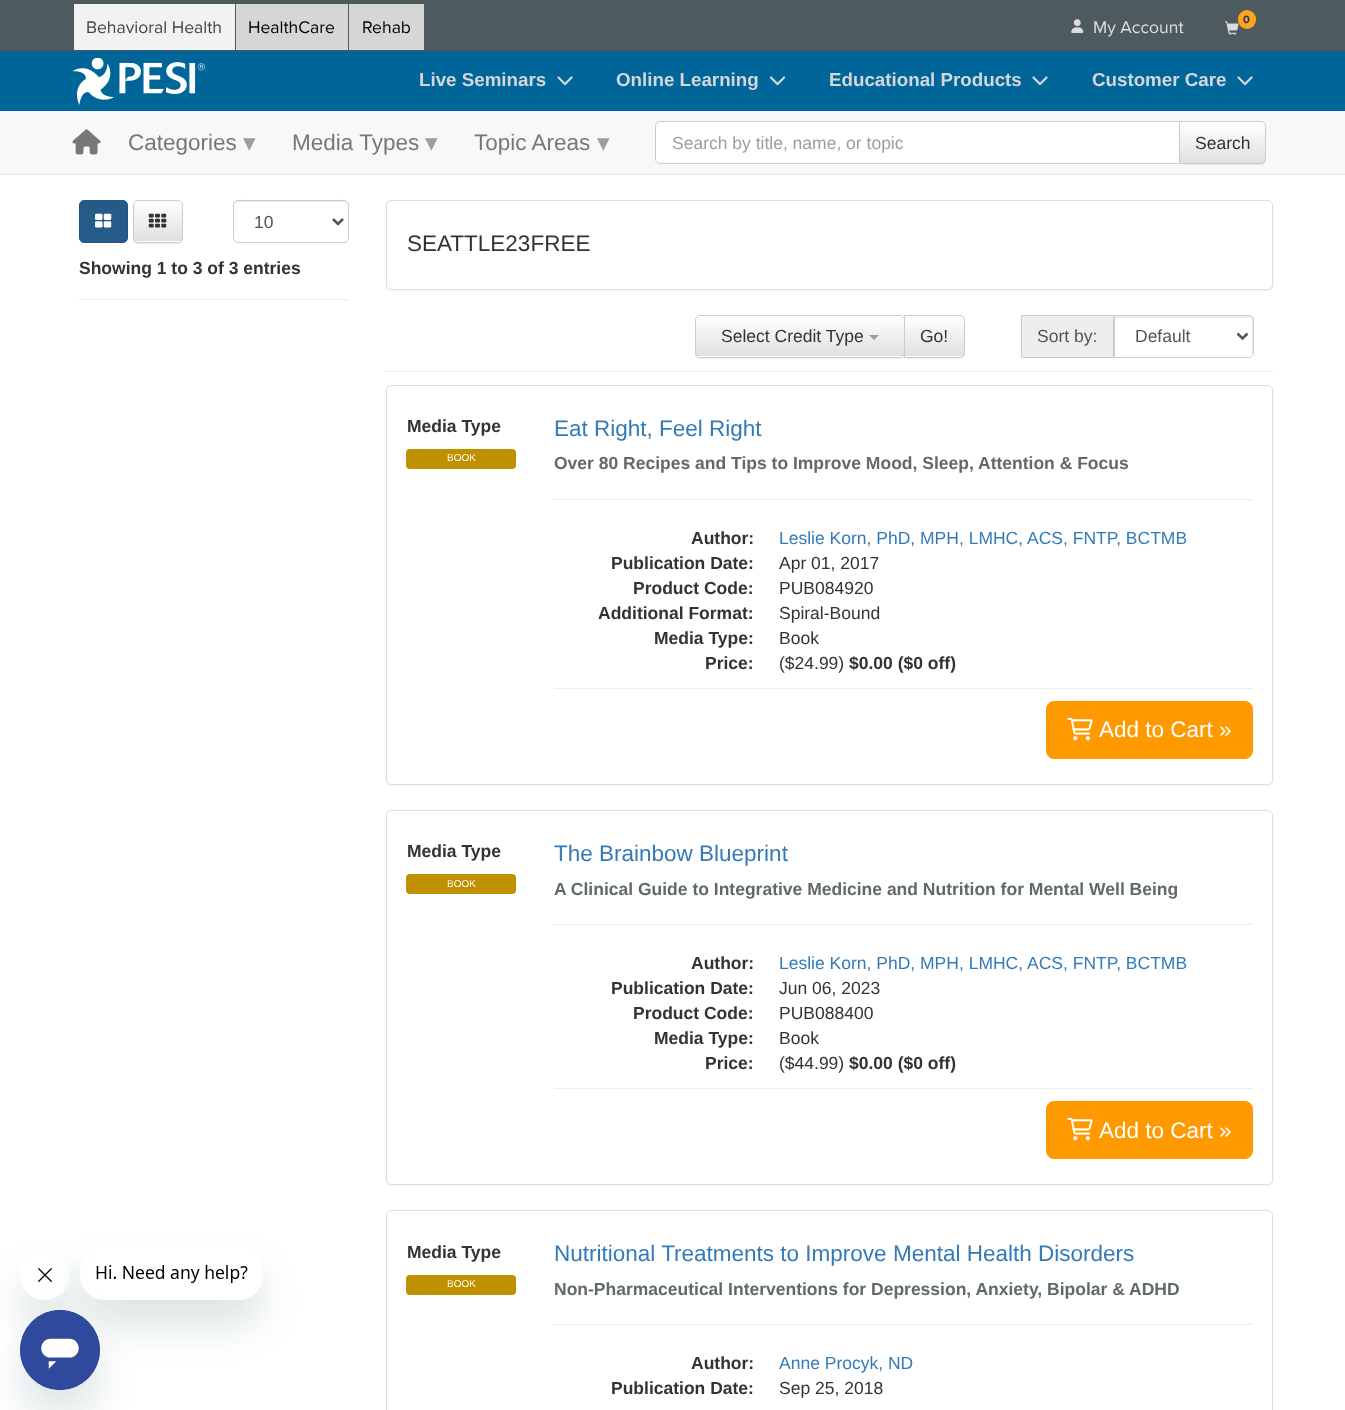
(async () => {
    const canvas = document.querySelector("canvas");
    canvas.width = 1345;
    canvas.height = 1410;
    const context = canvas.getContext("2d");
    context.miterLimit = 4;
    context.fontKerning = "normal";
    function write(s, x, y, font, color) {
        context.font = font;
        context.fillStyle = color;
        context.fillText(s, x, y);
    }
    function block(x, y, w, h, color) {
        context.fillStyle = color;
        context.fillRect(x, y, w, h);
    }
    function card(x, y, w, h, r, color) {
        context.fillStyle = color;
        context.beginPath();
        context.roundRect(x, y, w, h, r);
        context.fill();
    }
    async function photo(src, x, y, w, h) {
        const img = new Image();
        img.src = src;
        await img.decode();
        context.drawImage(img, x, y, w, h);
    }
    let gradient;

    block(0, 0, 1345, 1410, "rgb(255, 255, 255)");
    block(0, 0, 1345, 51, "rgb(78, 91, 94)");
    block(74, 4, 161, 46, "rgb(242, 242, 242)");
    write("Behavioral Health", 86, 33, "17.5px Proxima Nova", "rgb(68, 68, 68)");
    block(236, 4, 112, 46, "rgb(215, 214, 214)");
    write("HealthCare", 248, 33, "17.5px Proxima Nova", "rgb(0, 0, 0)");
    block(349, 4, 75, 46, "rgb(215, 214, 214)");
    write("Rehab", 362, 33, "17.5px Proxima Nova", "rgb(0, 0, 0)");
    await photo("media/1.png", 1225, 21, 14, 14);
    card(1238, 10, 18, 19, 9, "rgb(255, 164, 28)");
    write("0", 1243, 23, "bold 11px Proxima Nova", "rgb(27, 50, 112)");
    await photo("media/2.png", 1071, 19, 13, 14);
    write("My Account", 1093, 33, "17.5px Proxima Nova", "rgb(221, 221, 221)");
    block(0, 51, 1345, 60, "rgb(0, 102, 153)");
    await photo("media/3.png", 73, 58, 132, 47);
    write("Live Seminars", 419, 86, "bold 18.75px Liberation Sans", "rgb(211, 214, 218)");
    await photo("media/4.png", 557, 76, 16, 10);
    write("Online Learning", 616, 86, "bold 18.75px Liberation Sans", "rgb(211, 214, 218)");
    await photo("media/5.png", 769, 76, 17, 10);
    write("Educational Products", 829, 86, "bold 18.75px Liberation Sans", "rgb(211, 214, 218)");
    await photo("media/4.png", 1032, 76, 16, 10);
    write("Customer Care", 1092, 86, "bold 18.75px Liberation Sans", "rgb(211, 214, 218)");
    await photo("media/4.png", 1237, 76, 16, 10);
    block(0, 111, 1345, 63, "rgb(248, 248, 248)");
    block(0, 174, 1345, 1, "rgb(231, 231, 231)");
    await photo("media/6.png", 72, 129, 29, 26);
    write("Categories", 128, 150, "22.5px Liberation Sans", "rgb(119, 119, 119)");
    write("▾", 243, 151, "25px DejaVu Sans", "rgb(157, 157, 157)");
    write("Media Types", 292, 150, "22.5px Liberation Sans", "rgb(119, 119, 119)");
    write("▾", 425, 151, "25px DejaVu Sans", "rgb(157, 157, 157)");
    write("Topic Areas", 474, 150, "22.5px Liberation Sans", "rgb(119, 119, 119)");
    write("▾", 597, 151, "25px DejaVu Sans", "rgb(157, 157, 157)");
    context.fillStyle = "rgb(255, 255, 255)";
    context.beginPath();
    context.roundRect(655.5, 121.5, 610, 42, 4.5);
    context.fill();
    context.strokeStyle = "rgb(204, 204, 204)";
    context.stroke();
    write("Search by title, name, or topic", 672, 149, "17.5px Liberation Sans", "rgb(157, 157, 157)");
    context.fillStyle = "rgba(0, 0, 0, 0.07)";
    context.filter = "blur(0.5px)";
    context.beginPath();
    context.roundRect(1179, 123, 87, 42, 5);
    context.fill();
    context.filter = "none";
    context.fillStyle = "rgb(255, 255, 255)";
    context.beginPath();
    context.roundRect(1179, 121, 87, 43, [0, 5, 5, 0]);
    context.fill();
    context.save();
    context.beginPath();
    context.roundRect(1179, 121, 87, 43, [0, 5, 5, 0]);
    context.clip();
    gradient = context.createLinearGradient(1223, 123, 1223, 163);
    gradient.addColorStop(0, "rgb(255, 255, 255)");
    gradient.addColorStop(1, "rgb(224, 224, 224)");
    context.fillStyle = gradient;
    context.fillRect(1180, 123, 86, 40);
    context.restore();
    context.beginPath();
    context.roundRect(1179.5, 121.5, 86, 42, [0, 4.5, 4.5, 0]);
    context.stroke();
    write("Search", 1195, 149, "17.5px Liberation Sans", "rgb(51, 51, 51)");
    context.fillStyle = "rgb(38, 90, 136)";
    context.beginPath();
    context.roundRect(79.5, 200.5, 48, 42, 4.5);
    context.fill();
    context.strokeStyle = "rgb(36, 85, 128)";
    context.stroke();
    await photo("media/7.png", 95, 213, 17, 15);
    context.fillStyle = "rgba(0, 0, 0, 0.07)";
    context.filter = "blur(0.5px)";
    context.beginPath();
    context.roundRect(133, 201, 50, 43, 5);
    context.fill();
    context.filter = "none";
    card(133, 200, 50, 43, 5, "rgb(255, 255, 255)");
    context.save();
    context.beginPath();
    context.roundRect(133, 200, 50, 43, 5);
    context.clip();
    gradient = context.createLinearGradient(158, 201, 158, 241);
    gradient.addColorStop(0, "rgb(255, 255, 255)");
    gradient.addColorStop(1, "rgb(224, 224, 224)");
    context.fillStyle = gradient;
    context.fillRect(133, 201, 50, 40);
    context.restore();
    context.beginPath();
    context.roundRect(133.5, 200.5, 49, 42, 4.5);
    context.strokeStyle = "rgb(204, 204, 204)";
    context.stroke();
    await photo("media/8.png", 148, 213, 19, 15);
    context.fillStyle = "rgb(236, 236, 236)";
    context.beginPath();
    context.moveTo(238, 202);
    context.lineTo(344, 202);
    context.bezierCurveTo(346, 202, 348, 204, 348, 206);
    context.bezierCurveTo(348, 196, 330, 201, 326, 201);
    context.lineTo(256, 201);
    context.bezierCurveTo(252, 201, 234, 196, 234, 206);
    context.bezierCurveTo(234, 204, 235, 202, 238, 202);
    context.closePath();
    context.fill();
    context.beginPath();
    context.roundRect(233.5, 200.5, 115, 42, 4.5);
    context.stroke();
    context.beginPath();
    context.moveTo(333, 219);
    context.lineTo(338, 224);
    context.lineTo(343, 219);
    context.strokeStyle = "rgb(85, 85, 85)";
    context.lineWidth = 2.5;
    context.stroke();
    write("10", 254, 228, "17.5px Liberation Sans", "rgb(85, 85, 85)");
    write("Showing 1 to 3 of 3 entries", 79, 274, "bold 17.5px Liberation Sans", "rgb(51, 51, 51)");
    block(79, 299, 270, 1, "rgb(238, 238, 238)");
    context.fillStyle = "rgba(0, 0, 0, 0.05)";
    context.filter = "blur(1px)";
    context.beginPath();
    context.roundRect(386, 201, 887, 90, 5);
    context.fill();
    context.filter = "none";
    context.fillStyle = "rgb(255, 255, 255)";
    context.beginPath();
    context.roundRect(386.5, 200.5, 886, 89, 4.5);
    context.fill();
    context.strokeStyle = "rgb(221, 221, 221)";
    context.lineWidth = 1;
    context.stroke();
    write("SEATTLE23FREE", 407, 251, "22.5px Liberation Sans", "rgb(51, 51, 51)");
    context.fillStyle = "rgba(0, 0, 0, 0.07)";
    context.filter = "blur(0.5px)";
    context.beginPath();
    context.roundRect(695, 316, 210, 43, 5);
    context.fill();
    context.filter = "none";
    card(695, 315, 210, 43, 5, "rgb(255, 255, 255)");
    context.save();
    context.beginPath();
    context.roundRect(695, 315, 210, 43, 5);
    context.clip();
    gradient = context.createLinearGradient(800, 316, 800, 356);
    gradient.addColorStop(0, "rgb(255, 255, 255)");
    gradient.addColorStop(1, "rgb(224, 224, 224)");
    context.fillStyle = gradient;
    context.fillRect(695, 316, 209, 40);
    context.restore();
    context.beginPath();
    context.roundRect(695.5, 315.5, 209, 42, 4.5);
    context.strokeStyle = "rgb(204, 204, 204)";
    context.stroke();
    write("Select Credit Type", 721, 342, "17.5px Liberation Sans", "rgb(51, 51, 51)");
    context.fillStyle = "rgb(157, 157, 157)";
    context.beginPath();
    context.moveTo(869, 335);
    context.lineTo(879, 335);
    context.lineTo(874, 340);
    context.closePath();
    context.fill();
    context.fillStyle = "rgba(0, 0, 0, 0.07)";
    context.filter = "blur(0.5px)";
    context.beginPath();
    context.roundRect(904, 316, 61, 43, 5);
    context.fill();
    context.filter = "none";
    context.fillStyle = "rgb(255, 255, 255)";
    context.beginPath();
    context.roundRect(904, 315, 61, 43, [0, 5, 5, 0]);
    context.fill();
    context.save();
    context.beginPath();
    context.roundRect(904, 315, 61, 43, [0, 5, 5, 0]);
    context.clip();
    gradient = context.createLinearGradient(934, 316, 934, 356);
    gradient.addColorStop(0, "rgb(255, 255, 255)");
    gradient.addColorStop(1, "rgb(224, 224, 224)");
    context.fillStyle = gradient;
    context.fillRect(905, 316, 60, 40);
    context.restore();
    context.beginPath();
    context.roundRect(904.5, 315.5, 60, 42, [0, 4.5, 4.5, 0]);
    context.stroke();
    write("Go!", 920, 342, "17.5px Liberation Sans", "rgb(51, 51, 51)");
    context.fillStyle = "rgb(238, 238, 238)";
    context.beginPath();
    context.rect(1021.5, 315.5, 92, 42);
    context.fill();
    context.stroke();
    write("Sort by:", 1037, 342, "17.5px Liberation Sans", "rgb(85, 85, 85)");
    context.fillStyle = "rgb(236, 236, 236)";
    context.beginPath();
    context.moveTo(1115, 318);
    context.lineTo(1249, 318);
    context.bezierCurveTo(1251, 318, 1252, 319, 1252, 321);
    context.lineTo(1252, 355);
    context.bezierCurveTo(1253, 354, 1253, 353, 1253, 352);
    context.lineTo(1253, 320);
    context.bezierCurveTo(1253, 318, 1251, 316, 1249, 316);
    context.lineTo(1115, 316);
    context.closePath();
    context.fill();
    context.beginPath();
    context.roundRect(1114.5, 315.5, 139, 42, [0, 4.5, 4.5, 0]);
    context.stroke();
    context.beginPath();
    context.moveTo(1237.5, 333.5);
    context.lineTo(1242.5, 338.5);
    context.lineTo(1247.5, 333.5);
    context.strokeStyle = "rgb(85, 85, 85)";
    context.lineWidth = 2.5;
    context.stroke();
    write("Default", 1135, 342, "17.5px Liberation Sans", "rgb(85, 85, 85)");
    block(386, 371, 887, 1, "rgb(238, 238, 238)");
    context.fillStyle = "rgba(0, 0, 0, 0.05)";
    context.filter = "blur(1px)";
    context.beginPath();
    context.roundRect(386, 386, 887, 400, 5);
    context.fill();
    context.filter = "none";
    context.fillStyle = "rgb(255, 255, 255)";
    context.beginPath();
    context.roundRect(386.5, 385.5, 886, 399, 4.5);
    context.fill();
    context.strokeStyle = "rgb(221, 221, 221)";
    context.lineWidth = 1;
    context.stroke();
    write("Media Type", 407, 432, "bold 17.5px Liberation Sans", "rgb(51, 51, 51)");
    card(406, 449, 110, 20, 4, "rgb(191, 144, 0)");
    write("BOOK", 447, 461, "10px Liberation Sans", "rgb(255, 255, 255)");
    write("Eat Right, Feel Right", 554, 436, "22.5px Liberation Sans", "rgb(51, 122, 183)");
    write("Over 80 Recipes and Tips to Improve Mood, Sleep, Attention & Focus", 554, 469, "bold 17.5px Liberation Sans", "rgb(97, 106, 107)");
    block(554, 499, 699, 1, "rgb(238, 238, 238)");
    write("Author:", 691, 544, "bold 17.5px Liberation Sans", "rgb(51, 51, 51)");
    write("Leslie Korn, PhD, MPH, LMHC, ACS, FNTP, BCTMB", 779, 544, "17.5px Liberation Sans", "rgb(51, 122, 183)");
    write("Publication Date:", 611, 569, "bold 17.5px Liberation Sans", "rgb(51, 51, 51)");
    write("Apr 01, 2017", 779, 569, "17.5px Liberation Sans", "rgb(51, 51, 51)");
    write("Product Code:", 633, 594, "bold 17.5px Liberation Sans", "rgb(51, 51, 51)");
    write("PUB084920", 779, 594, "17.5px Liberation Sans", "rgb(51, 51, 51)");
    write("Additional Format:", 598, 619, "bold 17.5px Liberation Sans", "rgb(51, 51, 51)");
    write("Spiral-Bound", 779, 619, "17.5px Liberation Sans", "rgb(51, 51, 51)");
    write("Media Type:", 654, 644, "bold 17.5px Liberation Sans", "rgb(51, 51, 51)");
    write("Book", 779, 644, "17.5px Liberation Sans", "rgb(51, 51, 51)");
    write("Price:", 705, 669, "bold 17.5px Liberation Sans", "rgb(51, 51, 51)");
    write("($24.99)", 779, 669, "17.5px Liberation Sans", "rgb(51, 51, 51)");
    write("$0.00 ($0 off)", 849, 669, "bold 17.5px Liberation Sans", "rgb(51, 51, 51)");
    block(554, 688, 699, 1, "rgb(238, 238, 238)");
    context.fillStyle = "rgb(255, 153, 0)";
    context.beginPath();
    context.roundRect(1046.5, 701.5, 206, 57, 7.5);
    context.fill();
    context.strokeStyle = "rgb(255, 153, 0)";
    context.stroke();
    await photo("media/9.png", 1067, 717, 26, 24);
    write("Add to Cart »", 1099, 737, "22.5px Liberation Sans", "rgb(255, 255, 255)");
    context.fillStyle = "rgba(0, 0, 0, 0.05)";
    context.filter = "blur(1px)";
    context.beginPath();
    context.roundRect(386, 811, 887, 375, 5);
    context.fill();
    context.filter = "none";
    context.fillStyle = "rgb(255, 255, 255)";
    context.beginPath();
    context.roundRect(386.5, 810.5, 886, 374, 4.5);
    context.fill();
    context.strokeStyle = "rgb(221, 221, 221)";
    context.stroke();
    write("Media Type", 407, 857, "bold 17.5px Liberation Sans", "rgb(51, 51, 51)");
    card(406, 874, 110, 20, 4, "rgb(191, 144, 0)");
    write("BOOK", 447, 887, "10px Liberation Sans", "rgb(255, 255, 255)");
    write("The Brainbow Blueprint", 554, 861, "22.5px Liberation Sans", "rgb(51, 122, 183)");
    write("A Clinical Guide to Integrative Medicine and Nutrition for Mental Well Being", 554, 895, "bold 17.5px Liberation Sans", "rgb(97, 106, 107)");
    block(554, 924, 699, 1, "rgb(238, 238, 238)");
    write("Author:", 691, 969, "bold 17.5px Liberation Sans", "rgb(51, 51, 51)");
    write("Leslie Korn, PhD, MPH, LMHC, ACS, FNTP, BCTMB", 779, 969, "17.5px Liberation Sans", "rgb(51, 122, 183)");
    write("Publication Date:", 611, 994, "bold 17.5px Liberation Sans", "rgb(51, 51, 51)");
    write("Jun 06, 2023", 779, 994, "17.5px Liberation Sans", "rgb(51, 51, 51)");
    write("Product Code:", 633, 1019, "bold 17.5px Liberation Sans", "rgb(51, 51, 51)");
    write("PUB088400", 779, 1019, "17.5px Liberation Sans", "rgb(51, 51, 51)");
    write("Media Type:", 654, 1044, "bold 17.5px Liberation Sans", "rgb(51, 51, 51)");
    write("Book", 779, 1044, "17.5px Liberation Sans", "rgb(51, 51, 51)");
    write("Price:", 705, 1069, "bold 17.5px Liberation Sans", "rgb(51, 51, 51)");
    write("($44.99)", 779, 1069, "17.5px Liberation Sans", "rgb(51, 51, 51)");
    write("$0.00 ($0 off)", 849, 1069, "bold 17.5px Liberation Sans", "rgb(51, 51, 51)");
    block(554, 1088, 699, 1, "rgb(238, 238, 238)");
    context.fillStyle = "rgb(255, 153, 0)";
    context.beginPath();
    context.roundRect(1046.5, 1101.5, 206, 57, 7.5);
    context.fill();
    context.strokeStyle = "rgb(255, 153, 0)";
    context.stroke();
    await photo("media/9.png", 1067, 1117, 26, 24);
    write("Add to Cart »", 1099, 1138, "22.5px Liberation Sans", "rgb(255, 255, 255)");
    context.beginPath();
    context.roundRect(386.5, 1210.5, 886, 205, 4.5);
    context.strokeStyle = "rgb(221, 221, 221)";
    context.stroke();
    write("Media Type", 407, 1258, "bold 17.5px Liberation Sans", "rgb(51, 51, 51)");
    card(406, 1275, 110, 20, 4, "rgb(191, 144, 0)");
    write("BOOK", 447, 1287, "10px Liberation Sans", "rgb(255, 255, 255)");
    write("Nutritional Treatments to Improve Mental Health Disorders", 554, 1261, "22.5px Liberation Sans", "rgb(51, 122, 183)");
    write("Non-Pharmaceutical Interventions for Depression, Anxiety, Bipolar & ADHD", 554, 1295, "bold 17.5px Liberation Sans", "rgb(97, 106, 107)");
    block(554, 1324, 699, 1, "rgb(238, 238, 238)");
    write("Author:", 691, 1369, "bold 17.5px Liberation Sans", "rgb(51, 51, 51)");
    write("Anne Procyk, ND", 779, 1369, "17.5px Liberation Sans", "rgb(51, 122, 183)");
    write("Publication Date:", 611, 1394, "bold 17.5px Liberation Sans", "rgb(51, 51, 51)");
    write("Sep 25, 2018", 779, 1394, "17.5px Liberation Sans", "rgb(51, 51, 51)");
    context.save();
    context.beginPath();
    context.moveTo(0, 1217);
    context.lineTo(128, 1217);
    context.lineTo(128, 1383);
    context.lineTo(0, 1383);
    context.closePath();
    context.moveTo(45, 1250);
    context.bezierCurveTo(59, 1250, 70, 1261, 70, 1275);
    context.bezierCurveTo(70, 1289, 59, 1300, 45, 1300);
    context.bezierCurveTo(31, 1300, 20, 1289, 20, 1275);
    context.bezierCurveTo(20, 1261, 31, 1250, 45, 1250);
    context.closePath();
    context.clip("evenodd");
    context.fillStyle = "rgba(23, 73, 77, 0.15)";
    context.filter = "blur(19px)";
    context.beginPath();
    context.roundRect(20, 1275, 50, 50, 25);
    context.fill();
    context.filter = "none";
    context.restore();
    await photo("media/11.png", 38, 1268, 14, 14);
    context.save();
    context.beginPath();
    context.moveTo(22, 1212);
    context.lineTo(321, 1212);
    context.lineTo(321, 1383);
    context.lineTo(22, 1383);
    context.closePath();
    context.moveTo(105, 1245);
    context.lineTo(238, 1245);
    context.bezierCurveTo(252, 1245, 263, 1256, 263, 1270);
    context.lineTo(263, 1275);
    context.bezierCurveTo(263, 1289, 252, 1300, 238, 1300);
    context.lineTo(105, 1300);
    context.bezierCurveTo(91, 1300, 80, 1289, 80, 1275);
    context.lineTo(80, 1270);
    context.bezierCurveTo(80, 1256, 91, 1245, 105, 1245);
    context.closePath();
    context.clip("evenodd");
    context.fillStyle = "rgba(23, 73, 77, 0.15)";
    context.filter = "blur(19px)";
    context.beginPath();
    context.roundRect(80, 1270, 183, 55, 25);
    context.fill();
    context.filter = "none";
    context.restore();
    await photo("media/10.png", 81, 1265, 167, 29);
    context.fillStyle = "rgba(23, 73, 77, 0.15)";
    context.filter = "blur(19px)";
    context.beginPath();
    context.roundRect(20, 1335, 80, 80, 40);
    context.fill();
    context.filter = "none";
    await photo("media/12.png", 20, 1310, 80, 80);
})();
